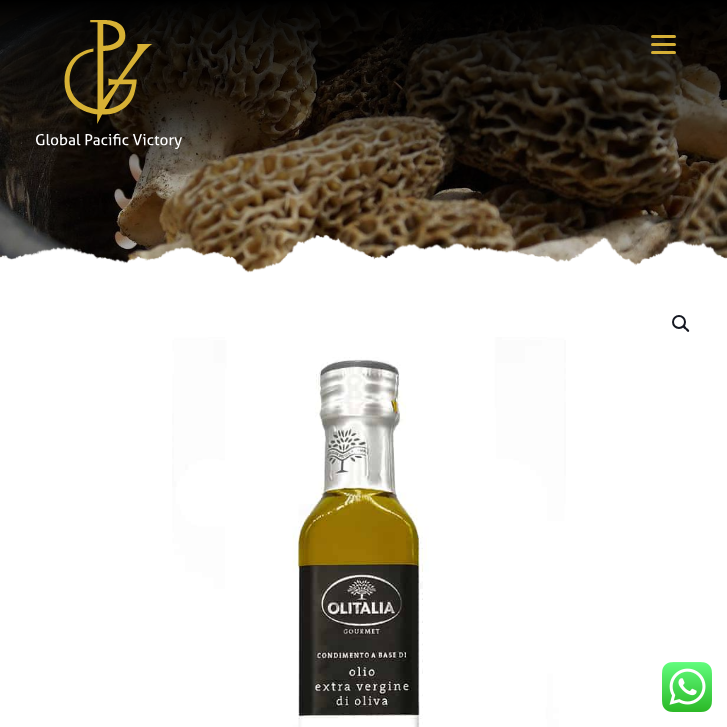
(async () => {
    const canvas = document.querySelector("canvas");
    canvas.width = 727;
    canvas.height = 727;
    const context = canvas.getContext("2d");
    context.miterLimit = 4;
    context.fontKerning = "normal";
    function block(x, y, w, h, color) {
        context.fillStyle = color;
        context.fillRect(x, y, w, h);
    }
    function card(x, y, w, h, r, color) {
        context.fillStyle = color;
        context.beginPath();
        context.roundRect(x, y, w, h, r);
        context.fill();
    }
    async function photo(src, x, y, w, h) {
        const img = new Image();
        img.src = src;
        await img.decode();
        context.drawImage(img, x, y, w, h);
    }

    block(0, 0, 727, 727, "rgb(255, 255, 255)");
    await photo("media/1.png", 0, 0, 727, 273);
    await photo("media/2.png", 0, 234, 727, 45);
    context.beginPath();
    context.arc(679, 322, 6, 0, Math.PI * 2);
    context.strokeStyle = "rgb(22, 25, 34)";
    context.lineWidth = 2;
    context.stroke();
    context.fillStyle = "rgb(22, 25, 34)";
    context.beginPath();
    context.moveTo(683, 326);
    context.bezierCurveTo(684.5, 324.5, 686, 327.5, 686.5, 328);
    context.bezierCurveTo(687.5, 328.5, 690, 330.5, 689, 331.5);
    context.bezierCurveTo(687.5, 333, 686, 330, 685.5, 329.5);
    context.bezierCurveTo(684.5, 329, 682, 327, 683, 326);
    context.closePath();
    context.fill();
    await photo("media/3.png", 172, 337, 394, 390);
    await photo("media/4.png", 36, 20, 146, 129);
    card(651, 35, 25, 3, 1.5, "rgb(214, 176, 54)");
    card(651, 43, 25, 3, 1.5, "rgb(214, 176, 54)");
    card(651, 51, 25, 3, 1.5, "rgb(214, 176, 54)");
    await photo("media/5.png", 662, 662, 50, 50);
})();
